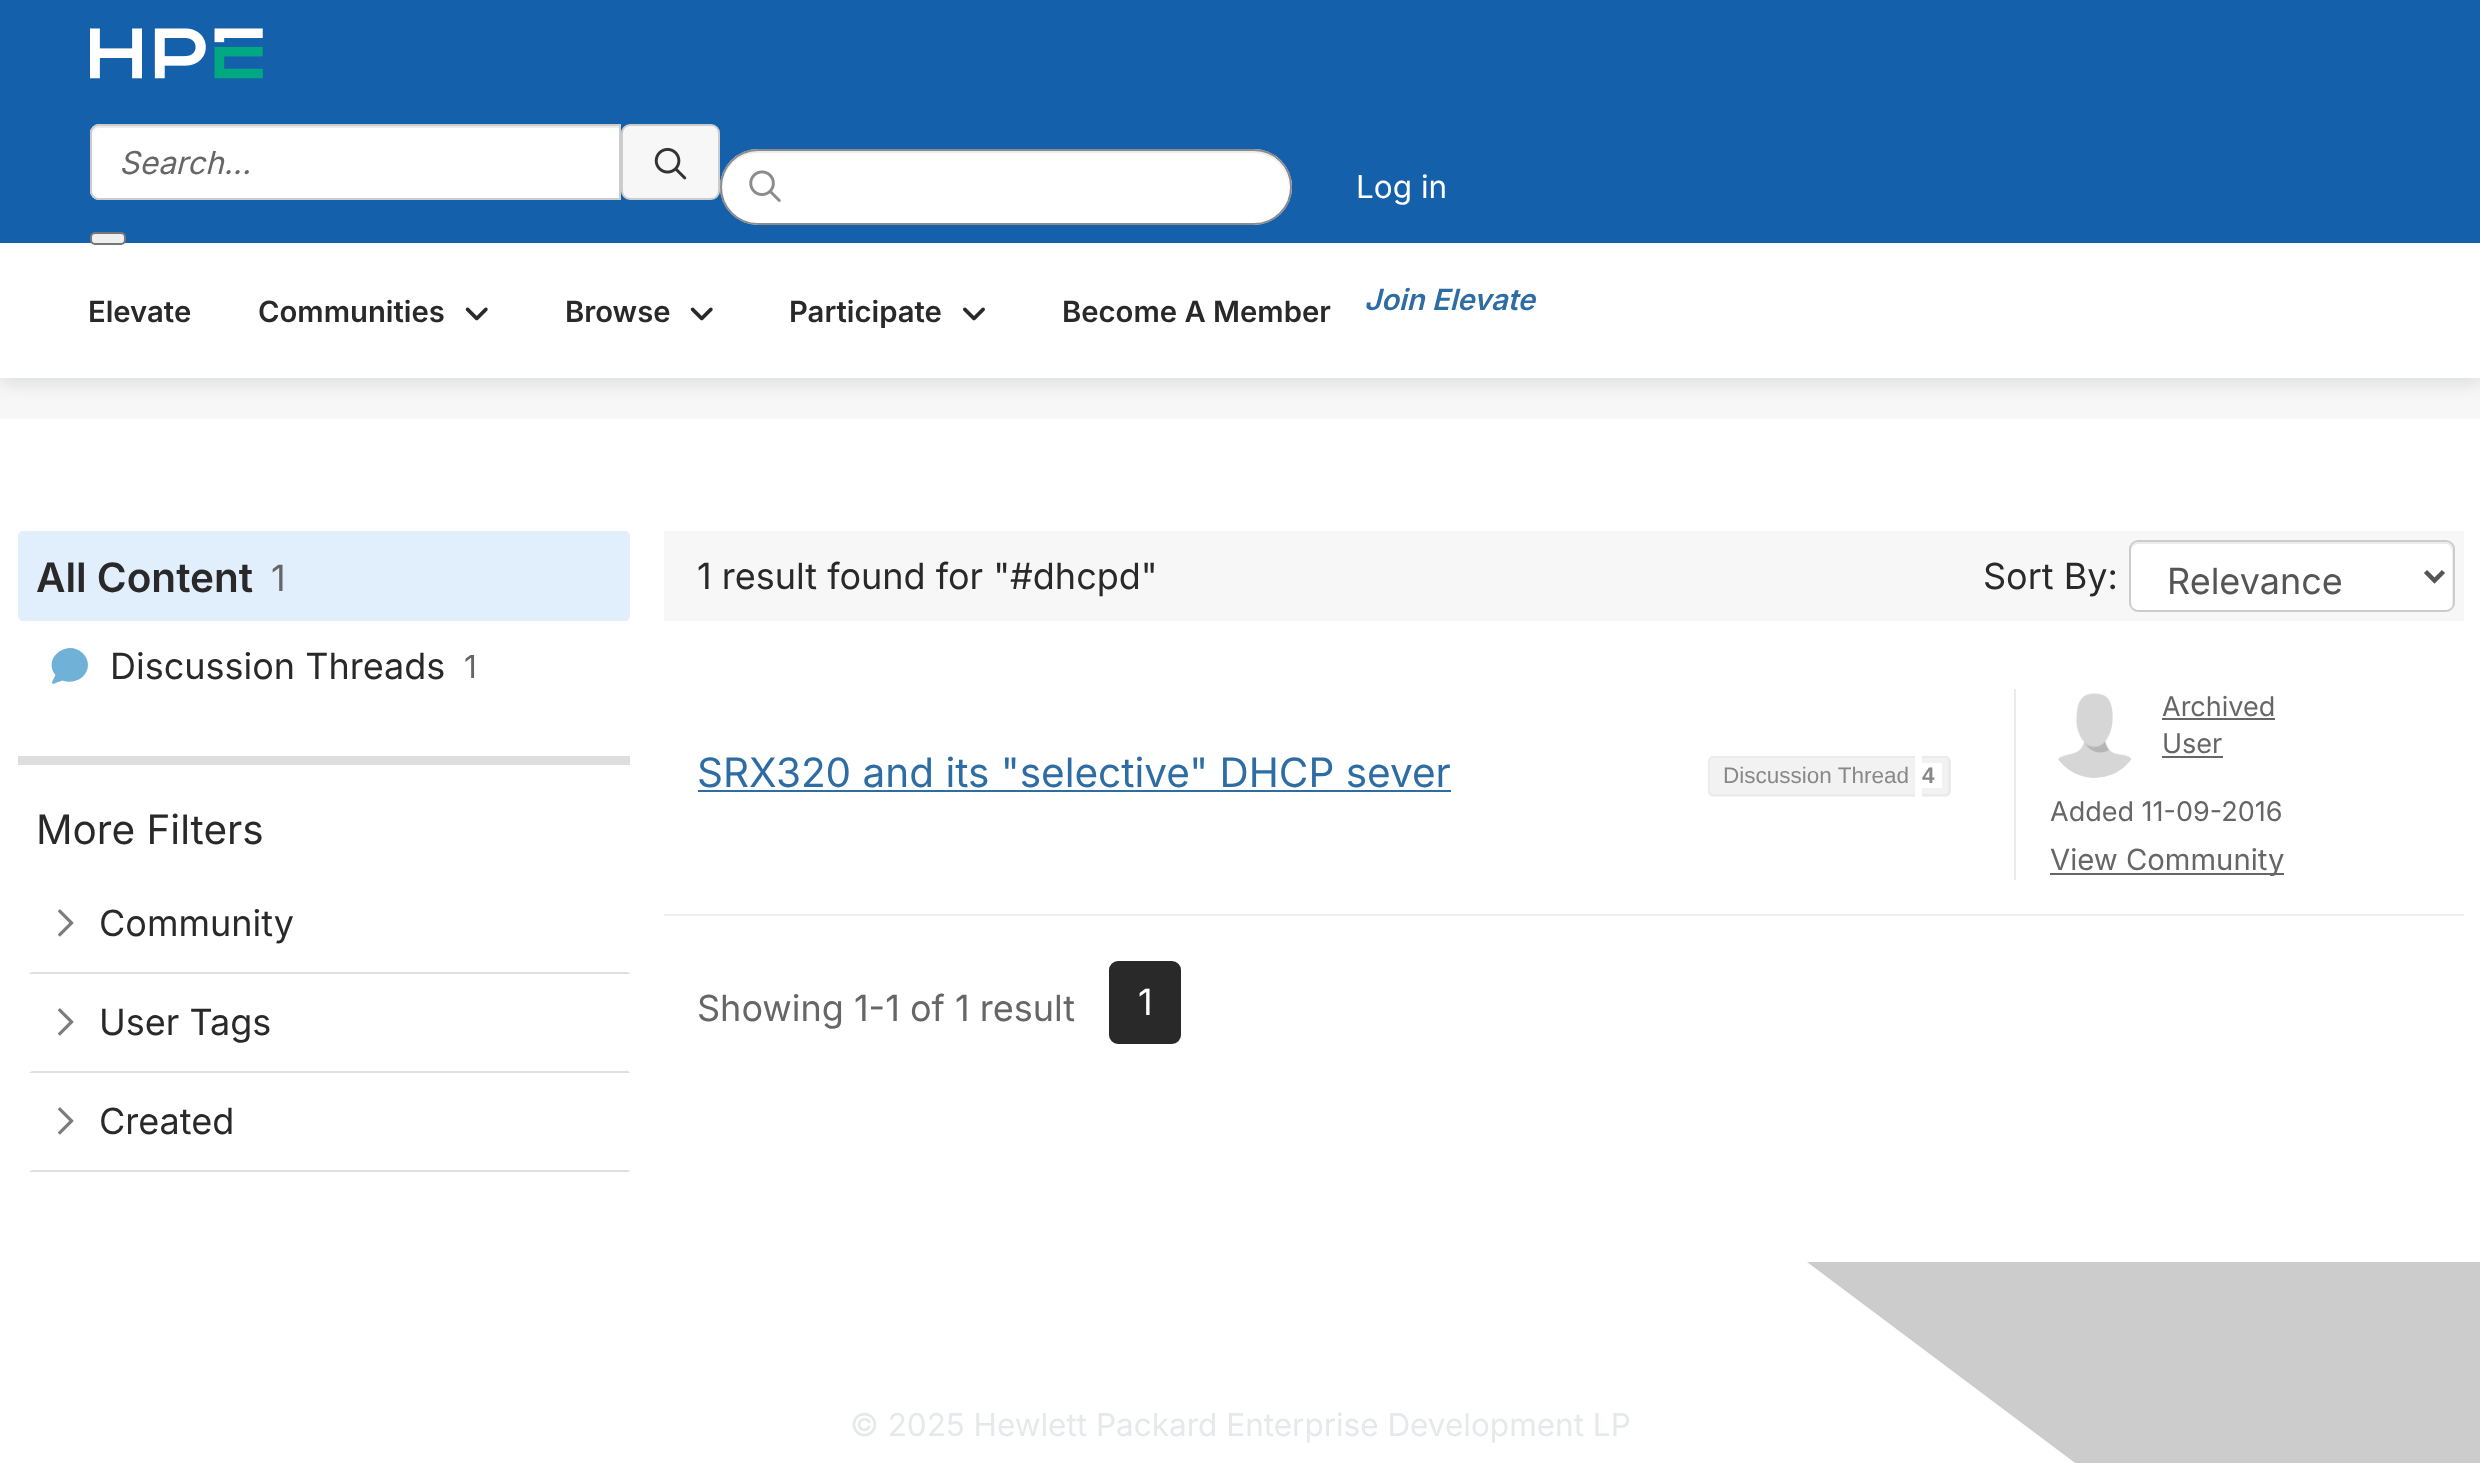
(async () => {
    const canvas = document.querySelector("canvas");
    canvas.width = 2480;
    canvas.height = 1463;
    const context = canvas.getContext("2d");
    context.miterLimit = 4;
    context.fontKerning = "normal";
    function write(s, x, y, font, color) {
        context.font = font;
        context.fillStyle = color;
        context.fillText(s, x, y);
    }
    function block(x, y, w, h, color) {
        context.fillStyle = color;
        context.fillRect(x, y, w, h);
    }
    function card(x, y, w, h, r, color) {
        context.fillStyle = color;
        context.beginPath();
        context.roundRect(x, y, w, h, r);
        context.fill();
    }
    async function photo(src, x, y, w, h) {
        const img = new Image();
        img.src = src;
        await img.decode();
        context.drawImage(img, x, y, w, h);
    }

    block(0, 0, 2480, 1463, "rgb(255, 255, 255)");
    block(0, 378, 2480, 41, "rgb(247, 247, 247)");
    context.fillStyle = "rgba(131, 135, 145, 0.24)";
    context.filter = "blur(9px)";
    context.beginPath();
    context.rect(0, 5, 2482, 378);
    context.fill();
    context.filter = "none";
    block(0, 243, 2480, 135, "rgb(255, 255, 255)");
    block(0, 0, 2480, 243, "rgb(20, 96, 170)");
    await photo("media/1.png", 90, 28, 173, 51);
    context.fillStyle = "rgb(255, 255, 255)";
    context.beginPath();
    context.roundRect(90, 124, 531, 76, [9, 0, 0, 9]);
    context.fill();
    context.fillStyle = "rgb(236, 236, 236)";
    context.beginPath();
    context.moveTo(99, 128);
    context.lineTo(619, 128);
    context.lineTo(619, 126);
    context.lineTo(99, 126);
    context.bezierCurveTo(94, 126, 92, 131, 92, 135);
    context.bezierCurveTo(92, 131, 95, 128, 99, 128);
    context.closePath();
    context.fill();
    context.beginPath();
    context.roundRect(91, 125, 529, 74, [8, 0, 0, 8]);
    context.strokeStyle = "rgb(204, 204, 204)";
    context.lineWidth = 2;
    context.stroke();
    write("Search...", 119, 174, "italic 31.5px Inter", "rgb(102, 102, 102)");
    context.fillStyle = "rgb(247, 247, 247)";
    context.beginPath();
    context.roundRect(622, 125, 97, 74, 8);
    context.fill();
    context.stroke();
    await photo("media/2.png", 654, 147, 33, 33);
    context.fillStyle = "rgb(239, 239, 239)";
    context.beginPath();
    context.roundRect(91, 233, 34, 11, 4);
    context.fill();
    context.strokeStyle = "rgb(118, 118, 118)";
    context.stroke();
    card(720, 149, 572, 76, 38, "rgb(255, 255, 255)");
    context.fillStyle = "rgb(236, 236, 236)";
    context.beginPath();
    context.moveTo(758, 153);
    context.lineTo(1253, 153);
    context.bezierCurveTo(1273, 153, 1288, 168, 1289, 188);
    context.bezierCurveTo(1290, 168, 1273, 151, 1253, 151);
    context.lineTo(758, 151);
    context.bezierCurveTo(738, 151, 721, 168, 722, 188);
    context.bezierCurveTo(723, 168, 738, 153, 758, 153);
    context.closePath();
    context.fill();
    context.beginPath();
    context.roundRect(721, 150, 570, 74, 37);
    context.strokeStyle = "rgb(140, 140, 140)";
    context.stroke();
    await photo("media/3.png", 749, 170, 32, 32);
    write("Log in", 1356, 198, "31.5px Inter", "rgb(255, 255, 255)");
    write("Elevate", 88, 322, "600 29.25px Inter", "rgb(41, 41, 41)");
    write("Communities", 258, 322, "600 29.25px Inter", "rgb(41, 41, 41)");
    await photo("media/4.png", 465, 307, 23, 14);
    write("Browse", 565, 322, "600 29.25px Inter", "rgb(41, 41, 41)");
    await photo("media/4.png", 690, 307, 23, 14);
    write("Participate", 789, 322, "600 29.25px Inter", "rgb(41, 41, 41)");
    await photo("media/5.png", 963, 307, 22, 14);
    write("Become A Member", 1062, 322, "600 29.25px Inter", "rgb(41, 41, 41)");
    write("Join Elevate", 1364, 310, "italic 600 29.25px Inter", "rgb(46, 109, 164)");
    card(18, 531, 612, 90, 5, "rgb(225, 238, 251)");
    write("All Content", 36, 592, "600 40.5px Inter", "rgb(41, 41, 41)");
    write("1", 271, 591, "36px Inter", "rgb(102, 102, 102)");
    context.fillStyle = "rgb(111, 177, 215)";
    context.beginPath();
    context.moveTo(88, 665);
    context.bezierCurveTo(88, 677.5, 73.5, 685, 62.5, 680.5);
    context.lineTo(57, 682.5);
    context.bezierCurveTo(55.5, 683, 53, 685, 52, 683);
    context.lineTo(52, 682);
    context.lineTo(55.5, 675);
    context.bezierCurveTo(42, 658.5, 67, 638.5, 82.5, 653);
    context.bezierCurveTo(86, 656, 88, 660.5, 88, 665);
    context.closePath();
    context.fill();
    write("Discussion Threads", 110, 679, "36px Inter", "rgb(41, 41, 41)");
    write("1", 464, 678, "31.5px Inter", "rgb(102, 102, 102)");
    block(18, 756, 612, 9, "rgb(222, 222, 223)");
    write("More Filters", 36, 844, "40.5px Inter", "rgb(41, 41, 41)");
    context.fillStyle = "rgb(222, 222, 223)";
    context.beginPath();
    context.moveTo(630, 974);
    context.lineTo(29, 974);
    context.lineTo(32, 972);
    context.lineTo(628, 972);
    context.closePath();
    context.fill();
    await photo("media/6.png", 58, 909, 16, 28);
    write("Community", 99, 936, "36px Inter", "rgb(41, 41, 41)");
    context.fillStyle = "rgb(222, 222, 223)";
    context.beginPath();
    context.moveTo(630, 1073);
    context.lineTo(29, 1073);
    context.lineTo(32, 1071);
    context.lineTo(628, 1071);
    context.closePath();
    context.fill();
    await photo("media/6.png", 58, 1008, 16, 28);
    write("User Tags", 99, 1035, "36px Inter", "rgb(41, 41, 41)");
    context.fillStyle = "rgb(222, 222, 223)";
    context.beginPath();
    context.moveTo(630, 1172);
    context.lineTo(29, 1172);
    context.lineTo(32, 1170);
    context.lineTo(628, 1170);
    context.closePath();
    context.fill();
    await photo("media/6.png", 58, 1107, 16, 28);
    write("Created", 99, 1134, "36px Inter", "rgb(41, 41, 41)");
    block(664, 531, 1800, 90, "rgb(247, 247, 247)");
    write("1 result found for \"#dhcpd\"", 697, 589, "36px Inter", "rgb(41, 41, 41)");
    write("Sort By:", 1983, 589, "36px Inter", "rgb(41, 41, 41)");
    card(2129, 540, 326, 72, 9, "rgb(255, 255, 255)");
    context.fillStyle = "rgb(236, 236, 236)";
    context.beginPath();
    context.moveTo(2138, 544);
    context.lineTo(2446, 544);
    context.bezierCurveTo(2449, 544, 2452, 548, 2452, 551);
    context.lineTo(2452, 607);
    context.bezierCurveTo(2453, 606, 2453, 604, 2453, 603);
    context.lineTo(2453, 549);
    context.bezierCurveTo(2453, 545, 2450, 542, 2446, 542);
    context.lineTo(2138, 542);
    context.bezierCurveTo(2134, 542, 2131, 545, 2131, 549);
    context.lineTo(2131, 551);
    context.bezierCurveTo(2131, 548, 2134, 544, 2138, 544);
    context.closePath();
    context.fill();
    context.beginPath();
    context.roundRect(2130, 541, 324, 70, 8);
    context.strokeStyle = "rgb(204, 204, 204)";
    context.stroke();
    context.beginPath();
    context.moveTo(2425.5, 571.5);
    context.lineTo(2434.5, 580.5);
    context.lineTo(2443.5, 571.5);
    context.strokeStyle = "rgb(85, 85, 85)";
    context.lineWidth = 4.5;
    context.stroke();
    write("Relevance", 2167, 594, "36px Inter", "rgb(85, 85, 85)");
    write("SRX320 and its \"selective\" DHCP sever", 697, 787, "40.5px Inter", "rgb(46, 109, 164)");
    block(698, 790, 753, 2, "rgb(46, 109, 164)");
    context.fillStyle = "rgb(242, 242, 242)";
    context.beginPath();
    context.roundRect(1708, 756, 207, 41, [6, 0, 0, 6]);
    context.fill();
    context.fillStyle = "rgb(235, 235, 235)";
    context.beginPath();
    context.moveTo(1713, 756);
    context.lineTo(1915, 756);
    context.lineTo(1915, 796);
    context.lineTo(1713, 796);
    context.bezierCurveTo(1710, 796, 1708, 794, 1708, 791);
    context.lineTo(1708, 762);
    context.bezierCurveTo(1708, 759, 1710, 756, 1713, 756);
    context.closePath();
    context.moveTo(1713, 758);
    context.lineTo(1915, 758);
    context.lineTo(1915, 794);
    context.lineTo(1713, 794);
    context.bezierCurveTo(1712, 794, 1710, 793, 1710, 791);
    context.lineTo(1710, 762);
    context.bezierCurveTo(1710, 760, 1712, 758, 1713, 758);
    context.closePath();
    context.fill("evenodd");
    write("Discussion Thread", 1723, 783, "22.5px Liberation Sans", "rgb(136, 136, 136)");
    context.fillStyle = "rgb(242, 242, 242)";
    context.beginPath();
    context.roundRect(1922, 756, 29, 41, [0, 6, 6, 0]);
    context.fill();
    context.fillStyle = "rgb(235, 235, 235)";
    context.beginPath();
    context.moveTo(1922, 756);
    context.lineTo(1945, 756);
    context.bezierCurveTo(1948, 756, 1951, 759, 1951, 762);
    context.lineTo(1951, 791);
    context.bezierCurveTo(1951, 794, 1948, 796, 1945, 796);
    context.lineTo(1922, 796);
    context.closePath();
    context.moveTo(1922, 758);
    context.lineTo(1945, 758);
    context.bezierCurveTo(1947, 758, 1948, 760, 1948, 762);
    context.lineTo(1948, 791);
    context.bezierCurveTo(1948, 793, 1947, 794, 1945, 794);
    context.lineTo(1922, 794);
    context.closePath();
    context.fill("evenodd");
    block(1922, 763, 20, 25, "rgb(255, 255, 255)");
    write("4", 1922, 783, "bold 22.5px Liberation Sans", "rgb(136, 136, 136)");
    block(2014, 689, 2, 191, "rgb(235, 235, 235)");
    await photo("media/7.png", 2058, 693, 74, 85);
    write("Archived", 2162, 716, "27px Inter", "rgb(102, 102, 102)");
    block(2162, 718, 113, 2, "rgb(102, 102, 102)");
    write("User", 2162, 753, "27px Inter", "rgb(102, 102, 102)");
    block(2162, 756, 61, 2, "rgb(102, 102, 102)");
    write("Added 11-09-2016", 2050, 821, "27px Inter", "rgb(102, 102, 102)");
    block(2050, 873, 234, 2, "rgb(102, 102, 102)");
    write("View Community", 2050, 870, "29.25px Inter", "rgb(102, 102, 102)");
    block(664, 914, 1800, 2, "rgb(238, 238, 238)");
    write("Showing 1-1 of 1 result", 697, 1021, "36px Inter", "rgb(102, 102, 102)");
    context.fillStyle = "rgb(41, 41, 41)";
    context.beginPath();
    context.roundRect(1110, 962, 70, 81, 8);
    context.fill();
    context.strokeStyle = "rgb(41, 41, 41)";
    context.lineWidth = 2;
    context.stroke();
    write("1", 1138, 1015, "36px Inter", "rgb(255, 255, 255)");
    write("© 2025 Hewlett Packard Enterprise Development LP", 850, 1436, "31.5px Inter", "rgb(229, 233, 235)");
    context.fillStyle = "rgb(204, 204, 204)";
    context.beginPath();
    context.moveTo(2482, 1262);
    context.lineTo(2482, 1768);
    context.lineTo(1807, 1262);
    context.closePath();
    context.fill();
})();
